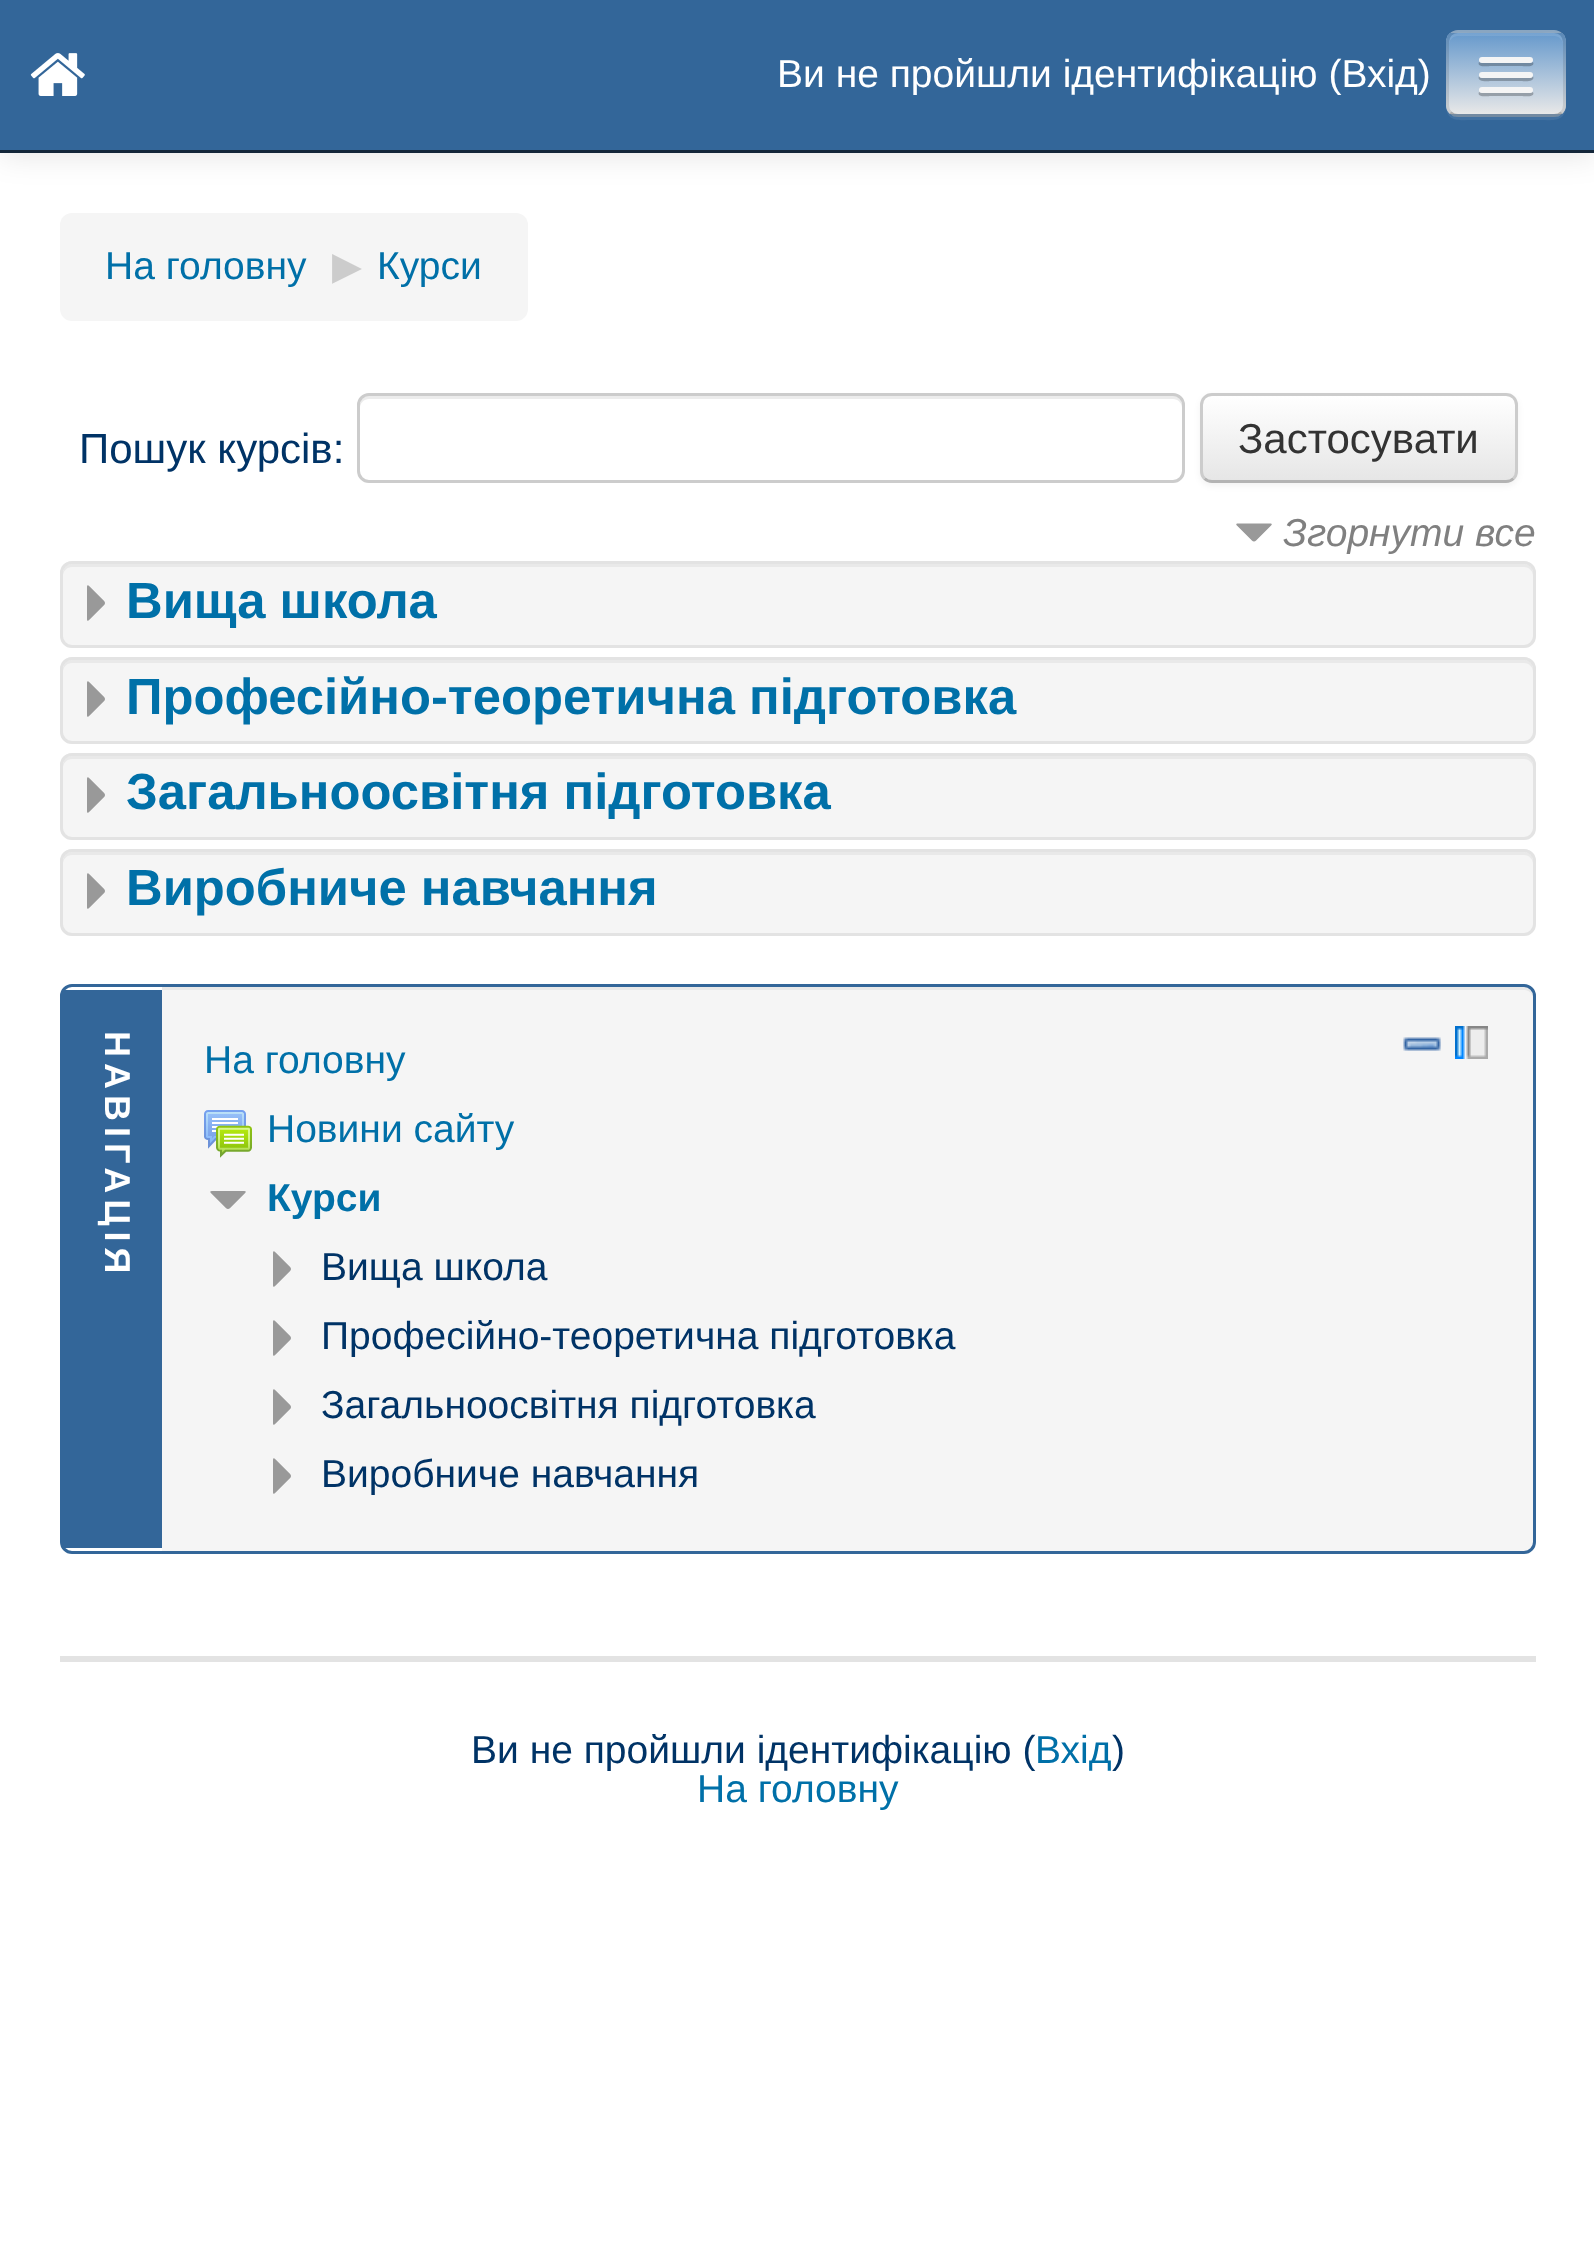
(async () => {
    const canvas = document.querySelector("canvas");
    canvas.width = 1594;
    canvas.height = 2249;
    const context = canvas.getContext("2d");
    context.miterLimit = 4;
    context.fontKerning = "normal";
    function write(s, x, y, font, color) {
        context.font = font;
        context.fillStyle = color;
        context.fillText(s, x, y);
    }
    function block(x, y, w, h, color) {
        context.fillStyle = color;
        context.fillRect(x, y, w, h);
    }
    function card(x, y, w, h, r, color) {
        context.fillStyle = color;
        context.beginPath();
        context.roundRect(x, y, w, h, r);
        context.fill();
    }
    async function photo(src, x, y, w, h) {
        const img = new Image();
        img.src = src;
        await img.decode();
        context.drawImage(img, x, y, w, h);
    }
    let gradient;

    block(0, 0, 1594, 2249, "rgb(255, 255, 255)");
    context.fillStyle = "rgba(0, 0, 0, 0.1)";
    context.filter = "blur(15px)";
    context.beginPath();
    context.rect(0, 3, 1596, 153);
    context.fill();
    context.filter = "none";
    block(0, 0, 1594, 150, "rgb(51, 102, 153)");
    block(0, 150, 1594, 3, "rgb(19, 38, 57)");
    await photo("media/1.png", 30, 53, 55, 43);
    write("Ви не пройшли ідентифікацію (Вхід)", 777, 87, "39px Liberation Sans", "rgb(255, 255, 255)");
    context.fillStyle = "rgb(66, 113, 161)";
    context.beginPath();
    context.moveTo(1446, 105);
    context.bezierCurveTo(1446, 123, 1460, 120, 1474, 120);
    context.lineTo(1538, 120);
    context.bezierCurveTo(1552, 120, 1566, 123, 1566, 105);
    context.bezierCurveTo(1566, 112, 1561, 117, 1554, 117);
    context.lineTo(1458, 117);
    context.bezierCurveTo(1451, 117, 1446, 112, 1446, 105);
    context.closePath();
    context.fill();
    card(1446, 30, 120, 87, 12, "rgb(154, 185, 215)");
    context.save();
    context.beginPath();
    context.roundRect(1446, 30, 120, 87, 12);
    context.clip();
    gradient = context.createLinearGradient(1506, 33, 1506, 114);
    gradient.addColorStop(0, "rgb(102, 153, 204)");
    gradient.addColorStop(1, "rgb(232, 232, 232)");
    context.fillStyle = gradient;
    context.fillRect(1446, 33, 120, 81);
    context.restore();
    context.fillStyle = "rgba(255, 255, 255, 0.1)";
    context.beginPath();
    context.moveTo(1458, 36);
    context.lineTo(1554, 36);
    context.bezierCurveTo(1559, 36, 1563, 40, 1563, 45);
    context.bezierCurveTo(1563, 29, 1551, 33, 1538, 33);
    context.lineTo(1474, 33);
    context.bezierCurveTo(1461, 33, 1449, 29, 1449, 45);
    context.bezierCurveTo(1449, 40, 1453, 36, 1458, 36);
    context.closePath();
    context.fill();
    context.beginPath();
    context.moveTo(1561.5, 112.5);
    context.bezierCurveTo(1559.5, 114.5, 1557, 115.5, 1554, 115.5);
    context.lineTo(1458, 115.5);
    context.bezierCurveTo(1455, 115.5, 1452.5, 114.5, 1450.5, 112.5);
    context.strokeStyle = "rgba(0, 0, 0, 0.25)";
    context.lineWidth = 3;
    context.stroke();
    context.beginPath();
    context.moveTo(1450.5, 112.5);
    context.bezierCurveTo(1448.5, 110.5, 1447.5, 108, 1447.5, 105);
    context.lineTo(1447.5, 42);
    context.bezierCurveTo(1447.5, 39, 1448.5, 36.5, 1450.5, 34.5);
    context.bezierCurveTo(1452.5, 32.5, 1455, 31.5, 1458, 31.5);
    context.lineTo(1554, 31.5);
    context.bezierCurveTo(1557, 31.5, 1559.5, 32.5, 1561.5, 34.5);
    context.bezierCurveTo(1563.5, 36.5, 1564.5, 39, 1564.5, 42);
    context.lineTo(1564.5, 105);
    context.bezierCurveTo(1564.5, 108, 1563.5, 110.5, 1561.5, 112.5);
    context.strokeStyle = "rgba(0, 0, 0, 0.1)";
    context.stroke();
    context.fillStyle = "rgba(0, 0, 0, 0.25)";
    context.beginPath();
    context.moveTo(1479, 62);
    context.bezierCurveTo(1476, 68, 1490, 66, 1490, 66);
    context.lineTo(1522, 66);
    context.bezierCurveTo(1522, 66, 1536, 68, 1533, 62);
    context.bezierCurveTo(1532, 62, 1531, 63, 1530, 63);
    context.lineTo(1482, 63);
    context.bezierCurveTo(1481, 63, 1480, 62, 1479, 62);
    context.closePath();
    context.fill();
    card(1479, 57, 54, 6, 3, "rgb(245, 245, 245)");
    context.fillStyle = "rgba(0, 0, 0, 0.25)";
    context.beginPath();
    context.moveTo(1479, 76);
    context.bezierCurveTo(1476, 83, 1490, 81, 1490, 81);
    context.lineTo(1522, 81);
    context.bezierCurveTo(1522, 81, 1536, 83, 1533, 76);
    context.bezierCurveTo(1532, 77, 1531, 78, 1530, 78);
    context.lineTo(1482, 78);
    context.bezierCurveTo(1481, 78, 1480, 77, 1479, 76);
    context.closePath();
    context.fill();
    card(1479, 72, 54, 6, 3, "rgb(245, 245, 245)");
    context.fillStyle = "rgba(0, 0, 0, 0.25)";
    context.beginPath();
    context.moveTo(1479, 92);
    context.bezierCurveTo(1476, 98, 1490, 96, 1490, 96);
    context.lineTo(1522, 96);
    context.bezierCurveTo(1522, 96, 1536, 98, 1533, 92);
    context.bezierCurveTo(1532, 92, 1531, 93, 1530, 93);
    context.lineTo(1482, 93);
    context.bezierCurveTo(1481, 93, 1480, 92, 1479, 92);
    context.closePath();
    context.fill();
    card(1479, 87, 54, 6, 3, "rgb(245, 245, 245)");
    card(60, 213, 468, 108, 12, "rgb(245, 245, 245)");
    write("На головну", 105, 279, "39px Liberation Sans", "rgb(0, 112, 168)");
    write("▶︎", 332, 279, "39px DejaVu Sans", "rgb(204, 204, 204)");
    write("Курси", 377, 279, "39px Liberation Sans", "rgb(0, 112, 168)");
    write("Пошук курсів:", 79, 463, "42px Liberation Sans", "rgb(0, 51, 102)");
    context.fillStyle = "rgb(236, 236, 236)";
    context.beginPath();
    context.moveTo(369, 399);
    context.lineTo(1173, 399);
    context.bezierCurveTo(1178, 399, 1182, 403, 1182, 408);
    context.lineTo(1182, 405);
    context.bezierCurveTo(1182, 400, 1178, 396, 1173, 396);
    context.lineTo(369, 396);
    context.bezierCurveTo(364, 396, 360, 400, 360, 405);
    context.lineTo(360, 408);
    context.bezierCurveTo(360, 403, 364, 399, 369, 399);
    context.closePath();
    context.fill();
    context.beginPath();
    context.roundRect(358.5, 394.5, 825, 87, 10.5);
    context.strokeStyle = "rgb(204, 204, 204)";
    context.stroke();
    context.fillStyle = "rgba(0, 0, 0, 0.05)";
    context.filter = "blur(3px)";
    context.beginPath();
    context.roundRect(1200, 396, 318, 90, 12);
    context.fill();
    context.filter = "none";
    context.save();
    context.beginPath();
    context.roundRect(1200, 393, 318, 90, 12);
    context.clip();
    gradient = context.createLinearGradient(1359, 396, 1359, 480);
    gradient.addColorStop(0, "rgb(255, 255, 255)");
    gradient.addColorStop(1, "rgb(230, 230, 230)");
    context.fillStyle = gradient;
    context.fillRect(1200, 396, 318, 84);
    context.restore();
    context.beginPath();
    context.moveTo(1513.5, 478.5);
    context.bezierCurveTo(1511.5, 480.5, 1509, 481.5, 1506, 481.5);
    context.lineTo(1212, 481.5);
    context.bezierCurveTo(1209, 481.5, 1206.5, 480.5, 1204.5, 478.5);
    context.strokeStyle = "rgb(179, 179, 179)";
    context.stroke();
    context.beginPath();
    context.moveTo(1204.5, 478.5);
    context.bezierCurveTo(1202.5, 476.5, 1201.5, 474, 1201.5, 471);
    context.lineTo(1201.5, 405);
    context.bezierCurveTo(1201.5, 402, 1202.5, 399.5, 1204.5, 397.5);
    context.bezierCurveTo(1206.5, 395.5, 1209, 394.5, 1212, 394.5);
    context.lineTo(1506, 394.5);
    context.bezierCurveTo(1509, 394.5, 1511.5, 395.5, 1513.5, 397.5);
    context.bezierCurveTo(1515.5, 399.5, 1516.5, 402, 1516.5, 405);
    context.lineTo(1516.5, 471);
    context.bezierCurveTo(1516.5, 474, 1515.5, 476.5, 1513.5, 478.5);
    context.strokeStyle = "rgb(204, 204, 204)";
    context.stroke();
    write("Застосувати", 1238, 453, "42px Liberation Sans", "rgb(51, 51, 51)");
    await photo("media/2.png", 1236, 523, 36, 19);
    write("Згорнути все", 1283, 546, "italic 39px Liberation Sans", "rgb(128, 128, 128)");
    card(60, 561, 1476, 87, 12, "rgb(245, 245, 245)");
    context.fillStyle = "rgb(233, 233, 233)";
    context.beginPath();
    context.moveTo(72, 567);
    context.lineTo(1524, 567);
    context.bezierCurveTo(1529, 567, 1533, 571, 1533, 576);
    context.lineTo(1533, 573);
    context.bezierCurveTo(1533, 568, 1529, 564, 1524, 564);
    context.lineTo(72, 564);
    context.bezierCurveTo(67, 564, 63, 568, 63, 573);
    context.lineTo(63, 576);
    context.bezierCurveTo(63, 571, 67, 567, 72, 567);
    context.closePath();
    context.fill();
    context.beginPath();
    context.roundRect(61.5, 562.5, 1473, 84, 10.5);
    context.strokeStyle = "rgb(227, 227, 227)";
    context.stroke();
    await photo("media/3.png", 87, 585, 18, 36);
    write("Вища школа", 126, 618, "bold 50.75px Liberation Sans", "rgb(0, 112, 168)");
    card(60, 657, 1476, 87, 12, "rgb(245, 245, 245)");
    context.fillStyle = "rgb(233, 233, 233)";
    context.beginPath();
    context.moveTo(72, 663);
    context.lineTo(1524, 663);
    context.bezierCurveTo(1529, 663, 1533, 667, 1533, 672);
    context.lineTo(1533, 669);
    context.bezierCurveTo(1533, 664, 1529, 660, 1524, 660);
    context.lineTo(72, 660);
    context.bezierCurveTo(67, 660, 63, 664, 63, 669);
    context.lineTo(63, 672);
    context.bezierCurveTo(63, 667, 67, 663, 72, 663);
    context.closePath();
    context.fill();
    context.beginPath();
    context.roundRect(61.5, 658.5, 1473, 84, 10.5);
    context.stroke();
    await photo("media/3.png", 87, 681, 18, 36);
    write("Професійно-теоретична підготовка", 126, 714, "bold 50.75px Liberation Sans", "rgb(0, 112, 168)");
    card(60, 753, 1476, 87, 12, "rgb(245, 245, 245)");
    context.fillStyle = "rgb(233, 233, 233)";
    context.beginPath();
    context.moveTo(72, 759);
    context.lineTo(1524, 759);
    context.bezierCurveTo(1529, 759, 1533, 763, 1533, 768);
    context.lineTo(1533, 765);
    context.bezierCurveTo(1533, 760, 1529, 756, 1524, 756);
    context.lineTo(72, 756);
    context.bezierCurveTo(67, 756, 63, 760, 63, 765);
    context.lineTo(63, 768);
    context.bezierCurveTo(63, 763, 67, 759, 72, 759);
    context.closePath();
    context.fill();
    context.beginPath();
    context.roundRect(61.5, 754.5, 1473, 84, 10.5);
    context.stroke();
    await photo("media/3.png", 87, 777, 18, 36);
    write("Загальноосвітня підготовка", 126, 809, "bold 50.75px Liberation Sans", "rgb(0, 112, 168)");
    card(60, 849, 1476, 87, 12, "rgb(245, 245, 245)");
    context.fillStyle = "rgb(233, 233, 233)";
    context.beginPath();
    context.moveTo(72, 855);
    context.lineTo(1524, 855);
    context.bezierCurveTo(1529, 855, 1533, 859, 1533, 864);
    context.lineTo(1533, 861);
    context.bezierCurveTo(1533, 856, 1529, 852, 1524, 852);
    context.lineTo(72, 852);
    context.bezierCurveTo(67, 852, 63, 856, 63, 861);
    context.lineTo(63, 864);
    context.bezierCurveTo(63, 859, 67, 855, 72, 855);
    context.closePath();
    context.fill();
    context.beginPath();
    context.roundRect(61.5, 850.5, 1473, 84, 10.5);
    context.stroke();
    await photo("media/3.png", 87, 873, 18, 36);
    write("Виробниче навчання", 126, 905, "bold 50.75px Liberation Sans", "rgb(0, 112, 168)");
    context.fillStyle = "rgb(245, 245, 245)";
    context.beginPath();
    context.moveTo(162, 987);
    context.lineTo(1524, 987);
    context.bezierCurveTo(1529, 987, 1533, 991, 1533, 996);
    context.lineTo(1533, 1542);
    context.bezierCurveTo(1533, 1547, 1529, 1551, 1524, 1551);
    context.lineTo(162, 1551);
    context.closePath();
    context.fill();
    context.fillStyle = "rgba(0, 0, 0, 0.05)";
    context.beginPath();
    context.moveTo(162, 990);
    context.lineTo(1524, 990);
    context.bezierCurveTo(1529, 990, 1533, 994, 1533, 999);
    context.bezierCurveTo(1533, 993, 1531, 987, 1524, 987);
    context.lineTo(162, 987);
    context.closePath();
    context.fill();
    context.beginPath();
    context.roundRect(61.5, 985.5, 1473, 567, 10.5);
    context.strokeStyle = "rgb(51, 102, 153)";
    context.stroke();
    block(63, 990, 99, 558, "rgb(51, 102, 153)");
    context.letterSpacing = "6px";
    context.font = "bold 36px Liberation Sans";
    context.fillStyle = "rgb(255, 255, 255)";
    context.save();
    context.translate(105, 1031);
    context.rotate(90 * Math.PI / 180);
    context.fillText("НАВІГАЦІЯ", 0, 0);
    context.restore();
    await photo("media/4.png", 1403, 1037, 38, 14);
    await photo("media/5.png", 1455, 1026, 33, 33);
    context.letterSpacing = "0px";
    write("На головну", 204, 1073, "39px Liberation Sans", "rgb(0, 112, 168)");
    await photo("media/6.png", 204, 1110, 48, 48);
    write("Новини сайту", 267, 1142, "39px Liberation Sans", "rgb(0, 112, 168)");
    await photo("media/7.png", 210, 1191, 36, 18);
    write("Курси", 267, 1211, "bold 39px Liberation Sans", "rgb(0, 112, 168)");
    await photo("media/8.png", 273, 1251, 18, 36);
    write("Вища школа", 321, 1280, "39px Liberation Sans", "rgb(0, 51, 102)");
    await photo("media/3.png", 273, 1320, 18, 36);
    write("Професійно-теоретична підготовка", 321, 1349, "39px Liberation Sans", "rgb(0, 51, 102)");
    await photo("media/3.png", 273, 1389, 18, 36);
    write("Загальноосвітня підготовка", 321, 1418, "39px Liberation Sans", "rgb(0, 51, 102)");
    await photo("media/3.png", 273, 1458, 18, 36);
    write("Виробниче навчання", 321, 1487, "39px Liberation Sans", "rgb(0, 51, 102)");
    block(60, 1656, 1476, 6, "rgb(227, 227, 227)");
    write("Ви не пройшли ідентифікацію (", 471, 1763, "39px Liberation Sans", "rgb(0, 51, 102)");
    write("Вхід", 1035, 1763, "39px Liberation Sans", "rgb(0, 112, 168)");
    write(")", 1112, 1763, "39px Liberation Sans", "rgb(0, 51, 102)");
    write("На головну", 697, 1802, "39px Liberation Sans", "rgb(0, 112, 168)");
})();
